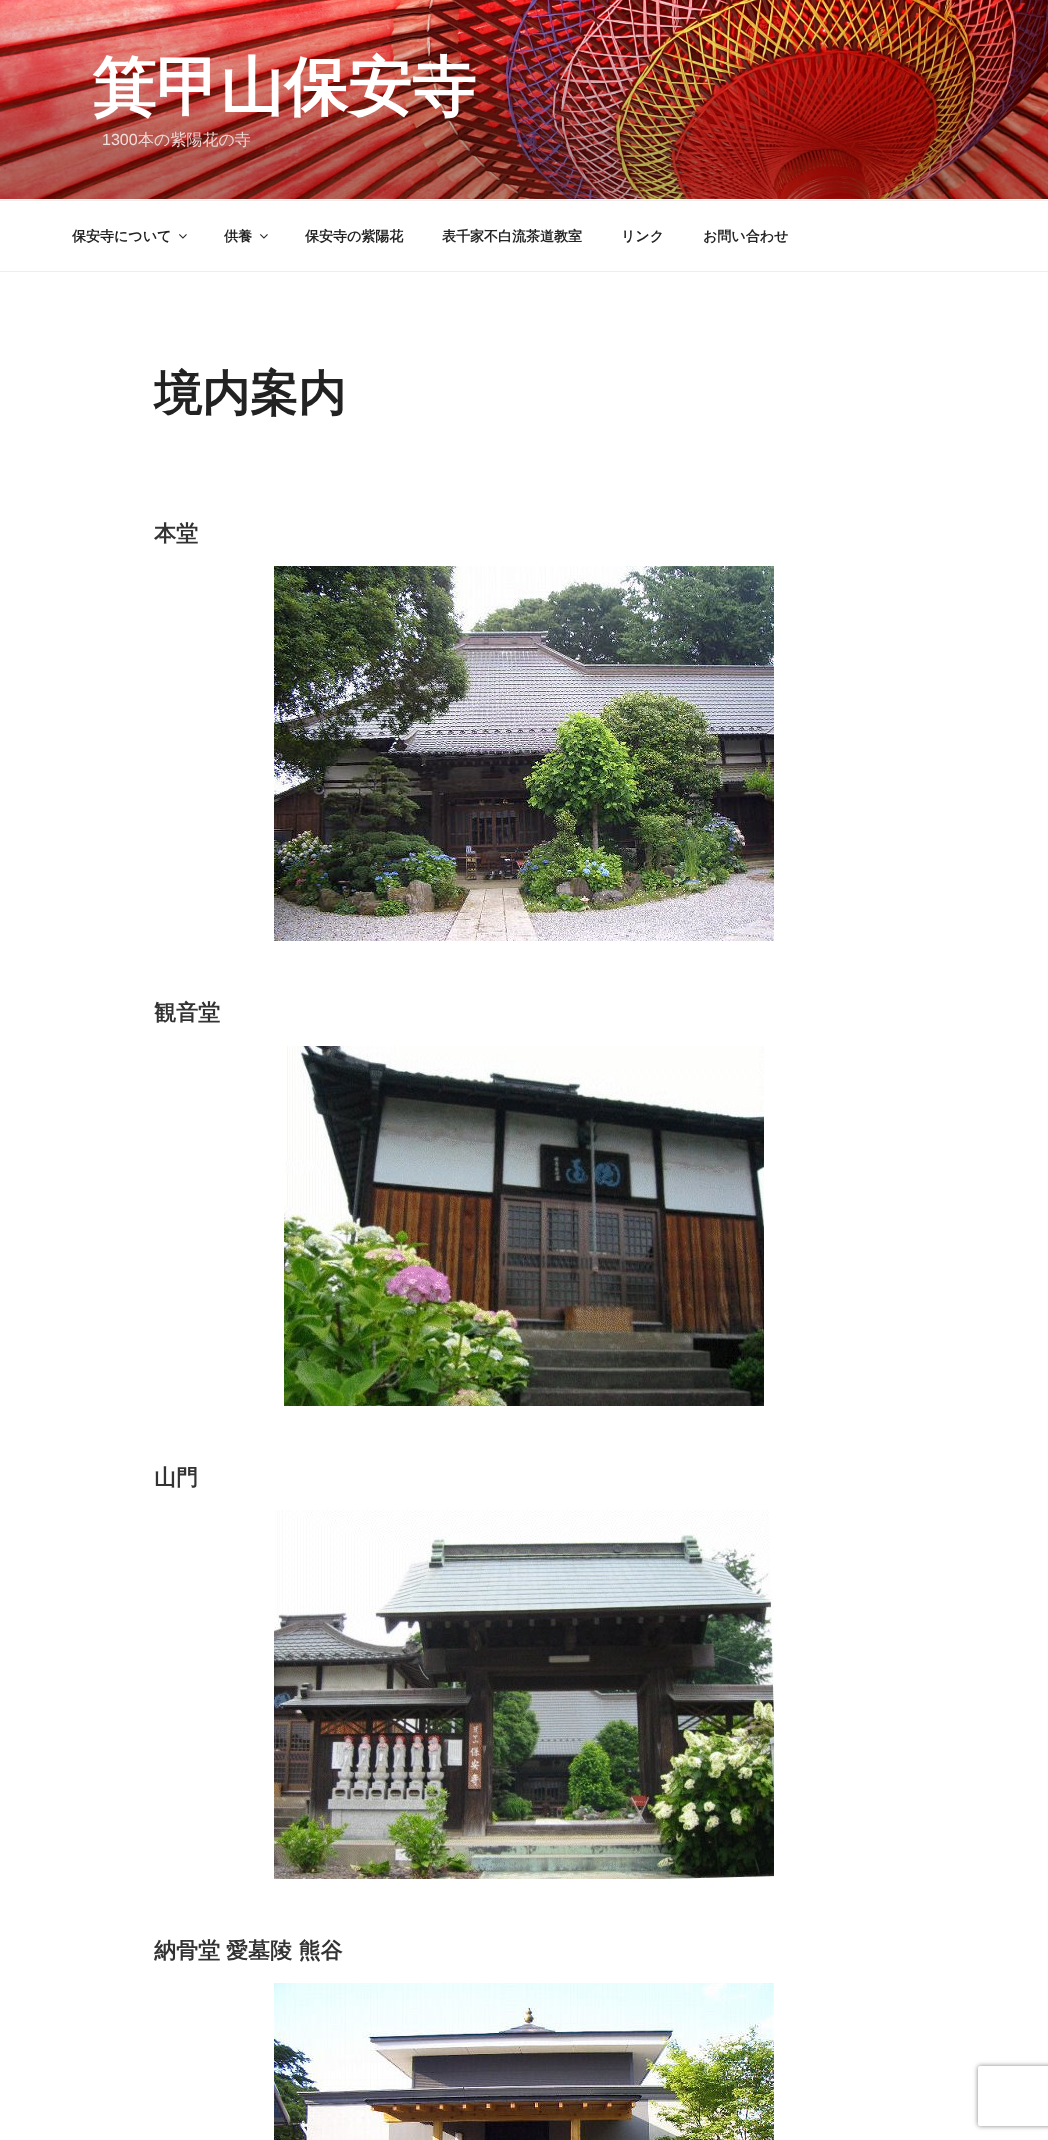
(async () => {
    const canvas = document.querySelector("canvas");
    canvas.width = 1048;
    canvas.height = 2140;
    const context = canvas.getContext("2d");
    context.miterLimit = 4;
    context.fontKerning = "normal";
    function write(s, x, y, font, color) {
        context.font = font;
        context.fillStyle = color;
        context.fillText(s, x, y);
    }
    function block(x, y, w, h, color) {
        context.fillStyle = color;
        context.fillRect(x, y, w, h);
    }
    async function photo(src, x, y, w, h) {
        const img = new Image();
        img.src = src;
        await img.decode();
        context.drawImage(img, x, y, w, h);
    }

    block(0, 0, 1048, 2140, "rgb(255, 255, 255)");
    block(0, 199, 1048, 1, "rgb(250, 250, 250)");
    await photo("media/1.png", 0, 0, 1048, 199);
    write("箕甲山保安寺", 92, 109, "bold 64px WenQuanYi Zen Hei", "rgb(255, 255, 255)");
    write("1300", 102, 145, "16px Liberation Sans", "rgb(240, 223, 221)");
    write("本の紫陽花の寺", 138, 145, "500 16px WenQuanYi Zen Hei", "rgb(237, 217, 216)");
    block(0, 200, 1048, 1, "rgb(238, 238, 238)");
    block(0, 271, 1048, 1, "rgb(238, 238, 238)");
    write("保安寺について", 72, 241, "bold 14px WenQuanYi Zen Hei", "rgb(34, 34, 34)");
    await photo("media/2.png", 179, 234, 8, 5);
    write("供養", 224, 241, "bold 14px WenQuanYi Zen Hei", "rgb(34, 34, 34)");
    await photo("media/2.png", 260, 234, 8, 5);
    write("保安寺の紫陽花", 305, 241, "bold 14px WenQuanYi Zen Hei", "rgb(34, 34, 34)");
    write("表千家不白流茶道教室", 442, 241, "bold 14px WenQuanYi Zen Hei", "rgb(34, 34, 34)");
    write("リンク", 621, 241, "bold 14px WenQuanYi Zen Hei", "rgb(34, 34, 34)");
    write("お問い合わせ", 703, 241, "bold 14px WenQuanYi Zen Hei", "rgb(34, 34, 34)");
    write("境内案内", 154, 410, "bold 48px WenQuanYi Zen Hei", "rgb(34, 34, 34)");
    write("本堂", 154, 541, "bold 22px WenQuanYi Zen Hei", "rgb(51, 51, 51)");
    await photo("media/3.png", 274, 566, 500, 375);
    write("観音堂", 154, 1020, "bold 22px WenQuanYi Zen Hei", "rgb(51, 51, 51)");
    await photo("media/4.png", 284, 1046, 480, 360);
    write("山門", 154, 1485, "bold 22px WenQuanYi Zen Hei", "rgb(51, 51, 51)");
    await photo("media/5.png", 274, 1510, 500, 369);
    write("納骨堂", 154, 1958, "bold 22px WenQuanYi Zen Hei", "rgb(51, 51, 51)");
    write("愛墓陵 熊谷", 226, 1958, "bold 22px WenQuanYi Zen Hei", "rgb(51, 51, 51)");
    await photo("media/6.png", 274, 1983, 500, 157);
    context.save();
    context.beginPath();
    context.moveTo(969, 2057);
    context.lineTo(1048, 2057);
    context.lineTo(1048, 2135);
    context.lineTo(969, 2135);
    context.closePath();
    context.moveTo(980, 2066);
    context.lineTo(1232, 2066);
    context.bezierCurveTo(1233, 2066, 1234, 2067, 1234, 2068);
    context.lineTo(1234, 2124);
    context.bezierCurveTo(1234, 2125, 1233, 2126, 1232, 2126);
    context.lineTo(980, 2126);
    context.bezierCurveTo(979, 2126, 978, 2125, 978, 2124);
    context.lineTo(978, 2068);
    context.bezierCurveTo(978, 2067, 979, 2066, 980, 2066);
    context.closePath();
    context.clip("evenodd");
    context.fillStyle = "rgb(128, 128, 128)";
    context.filter = "blur(2.5px)";
    context.beginPath();
    context.roundRect(978, 2066, 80, 60, 2);
    context.fill();
    context.filter = "none";
    context.restore();
})();
